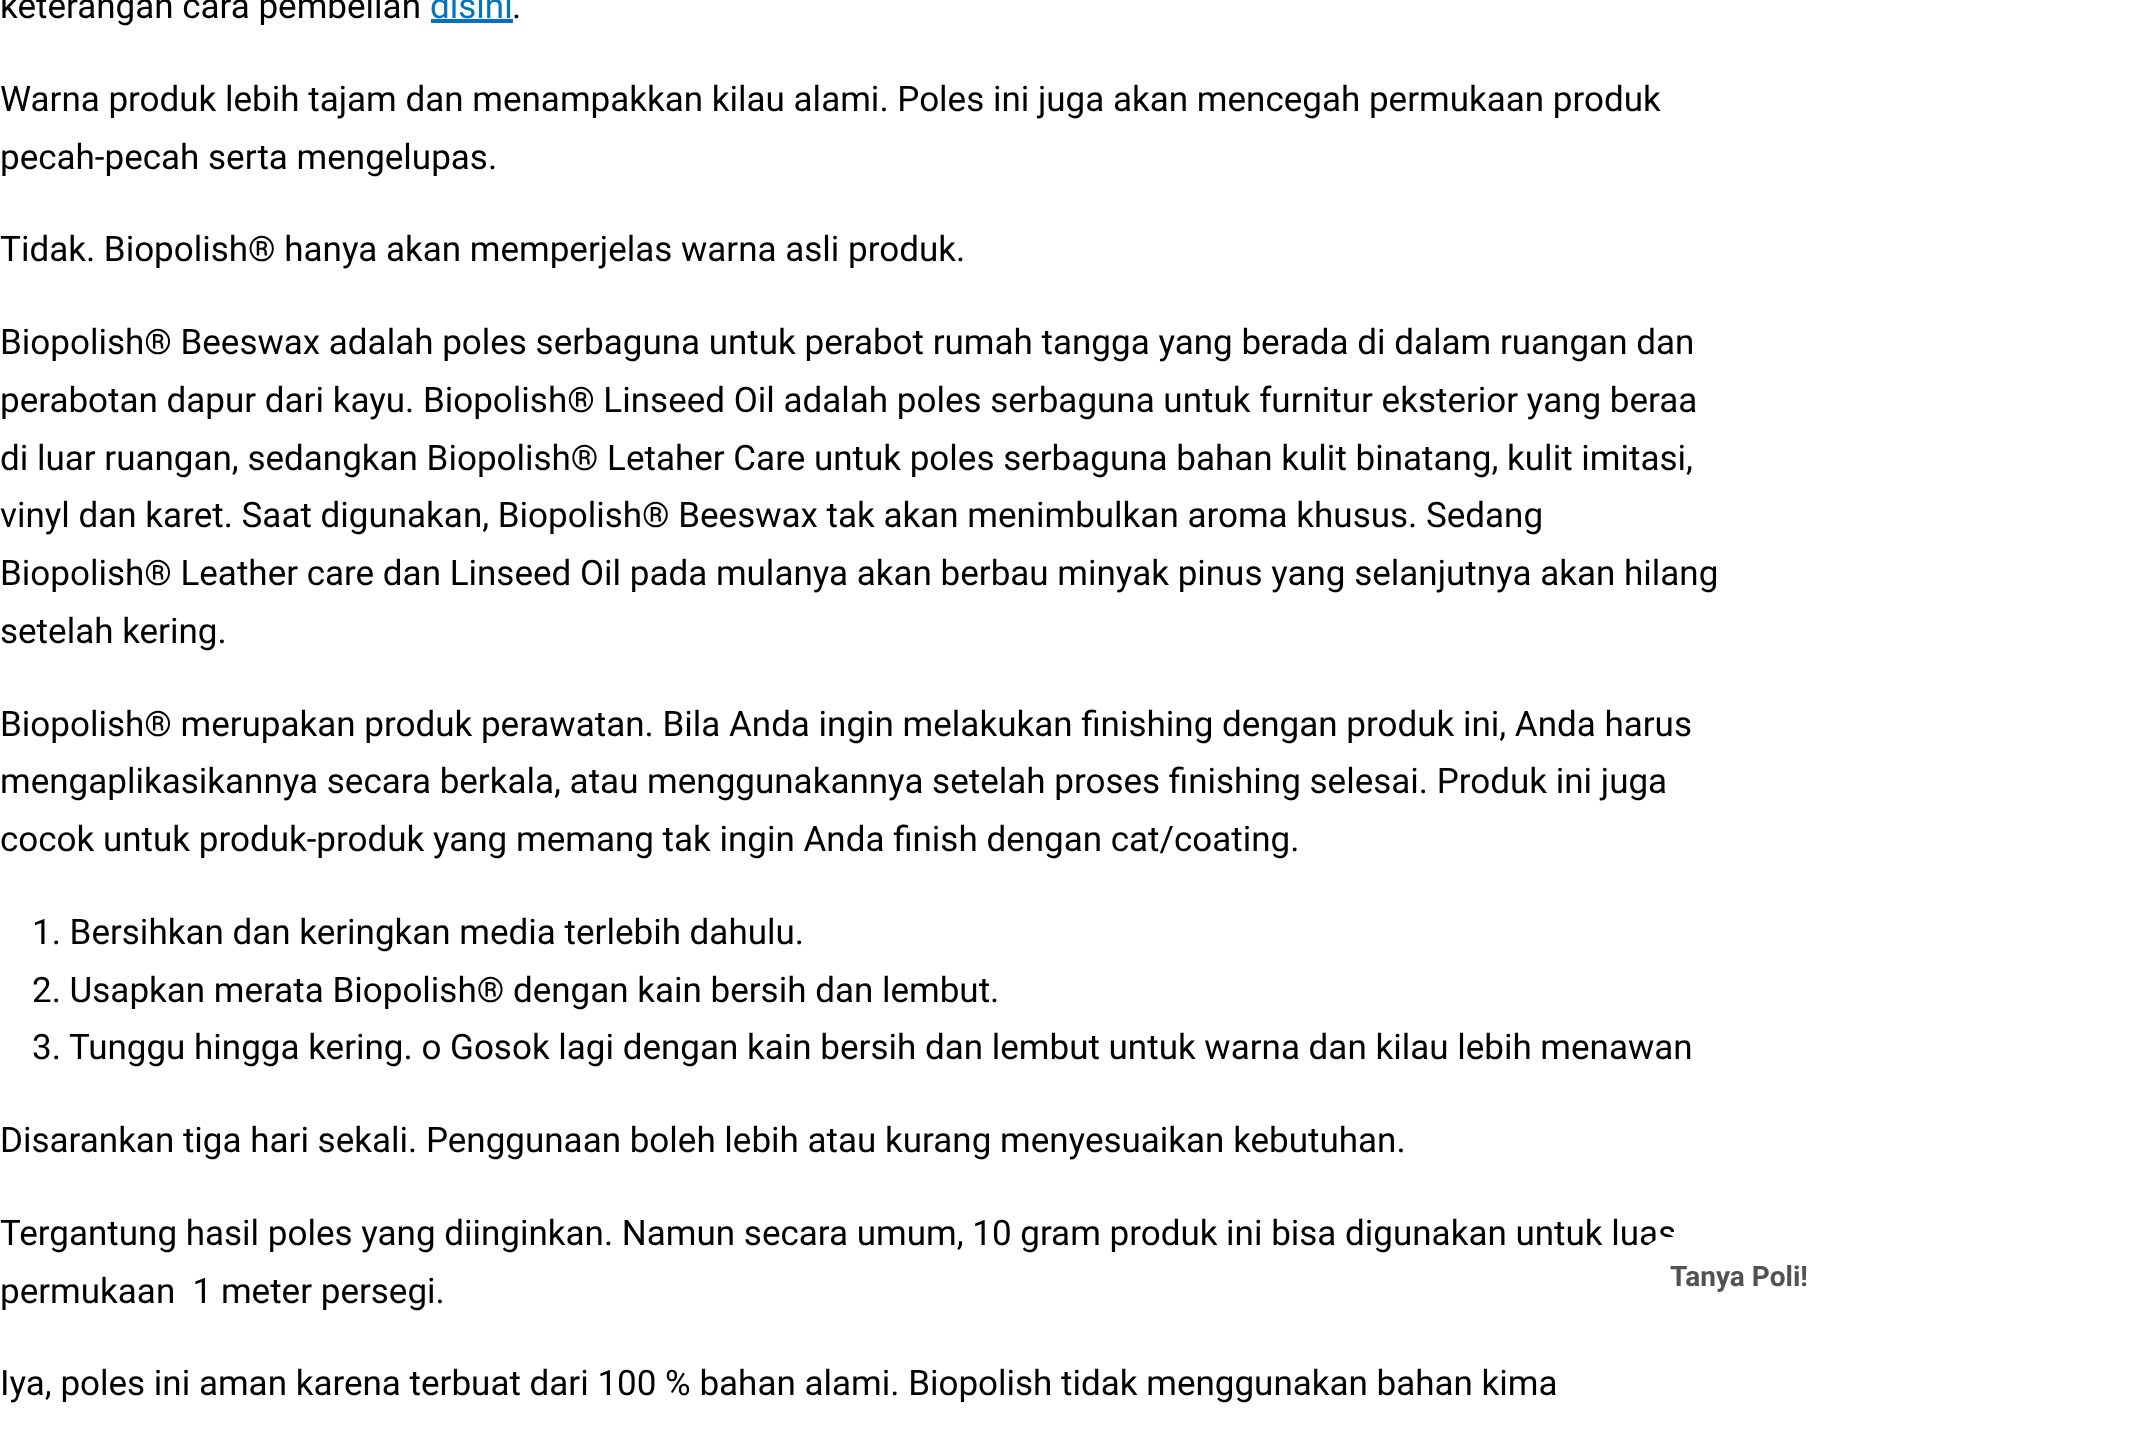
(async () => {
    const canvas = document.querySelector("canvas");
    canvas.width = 2130;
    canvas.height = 1429;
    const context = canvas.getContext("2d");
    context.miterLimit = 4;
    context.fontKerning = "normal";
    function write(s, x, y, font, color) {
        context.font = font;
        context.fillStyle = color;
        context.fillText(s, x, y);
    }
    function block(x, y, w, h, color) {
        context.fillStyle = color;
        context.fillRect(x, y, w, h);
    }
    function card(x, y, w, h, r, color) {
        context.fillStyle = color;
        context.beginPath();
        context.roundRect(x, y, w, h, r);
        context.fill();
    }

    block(0, 0, 2130, 1429, "rgb(255, 255, 255)");
    write("keterangan cara pembelian", 0, 18, "35px Roboto", "rgb(0, 0, 0)");
    write("disini", 430, 18, "35px Roboto", "rgb(2, 116, 190)");
    block(431, 19, 82, 4, "rgb(2, 116, 190)");
    write(".", 512, 18, "35px Roboto", "rgb(0, 0, 0)");
    write("Warna produk lebih tajam dan menampakkan kilau alami. Poles ini juga akan mencegah permukaan produk", 0, 111, "35px Roboto", "rgb(0, 0, 0)");
    write("pecah-pecah serta mengelupas.", 0, 169, "35px Roboto", "rgb(0, 0, 0)");
    write("Tidak. Biopolish® hanya akan memperjelas warna asli produk.", 0, 261, "35px Roboto", "rgb(0, 0, 0)");
    write("Biopolish® Beeswax adalah poles serbaguna untuk perabot rumah tangga yang berada di dalam ruangan dan", 0, 354, "35px Roboto", "rgb(0, 0, 0)");
    write("perabotan dapur dari kayu. Biopolish® Linseed Oil adalah poles serbaguna untuk furnitur eksterior yang beraa", 0, 412, "35px Roboto", "rgb(0, 0, 0)");
    write("di luar ruangan, sedangkan Biopolish® Letaher Care untuk poles serbaguna bahan kulit binatang, kulit imitasi,", 0, 470, "35px Roboto", "rgb(0, 0, 0)");
    write("vinyl dan karet. Saat digunakan, Biopolish® Beeswax tak akan menimbulkan aroma khusus. Sedang", 0, 527, "35px Roboto", "rgb(0, 0, 0)");
    write("Biopolish® Leather care dan Linseed Oil pada mulanya akan berbau minyak pinus yang selanjutnya akan hilang", 0, 585, "35px Roboto", "rgb(0, 0, 0)");
    write("setelah kering.", 0, 643, "35px Roboto", "rgb(0, 0, 0)");
    write("Biopolish® merupakan produk perawatan. Bila Anda ingin melakukan finishing dengan produk ini, Anda harus", 0, 736, "35px Roboto", "rgb(0, 0, 0)");
    write("mengaplikasikannya secara berkala, atau menggunakannya setelah proses finishing selesai. Produk ini juga", 0, 793, "35px Roboto", "rgb(0, 0, 0)");
    write("cocok untuk produk-produk yang memang tak ingin Anda finish dengan cat/coating.", 0, 851, "35px Roboto", "rgb(0, 0, 0)");
    write("1. Bersihkan dan keringkan media terlebih dahulu.", 32, 944, "35px Roboto", "rgb(0, 0, 0)");
    write("2. Usapkan merata Biopolish® dengan kain bersih dan lembut.", 32, 1002, "35px Roboto", "rgb(0, 0, 0)");
    write("3. Tunggu hingga kering. o Gosok lagi dengan kain bersih dan lembut untuk warna dan kilau lebih menawan", 32, 1059, "35px Roboto", "rgb(0, 0, 0)");
    write("Disarankan tiga hari sekali. Penggunaan boleh lebih atau kurang menyesuaikan kebutuhan.", 0, 1152, "35px Roboto", "rgb(0, 0, 0)");
    write("Tergantung hasil poles yang diinginkan. Namun secara umum, 10 gram produk ini bisa digunakan untuk luas", 0, 1245, "35px Roboto", "rgb(0, 0, 0)");
    write("permukaan  1 meter persegi.", 0, 1303, "35px Roboto", "rgb(0, 0, 0)");
    write("Iya, poles ini aman karena terbuat dari 100 % bahan alami. Biopolish tidak menggunakan bahan kima", 0, 1395, "35px Roboto", "rgb(0, 0, 0)");
    card(1635, 1237, 217, 88, 35, "rgb(255, 255, 255)");
    write("Tanya Poli!", 1670, 1286, "bold 28px Roboto", "rgb(82, 82, 82)");
})();
